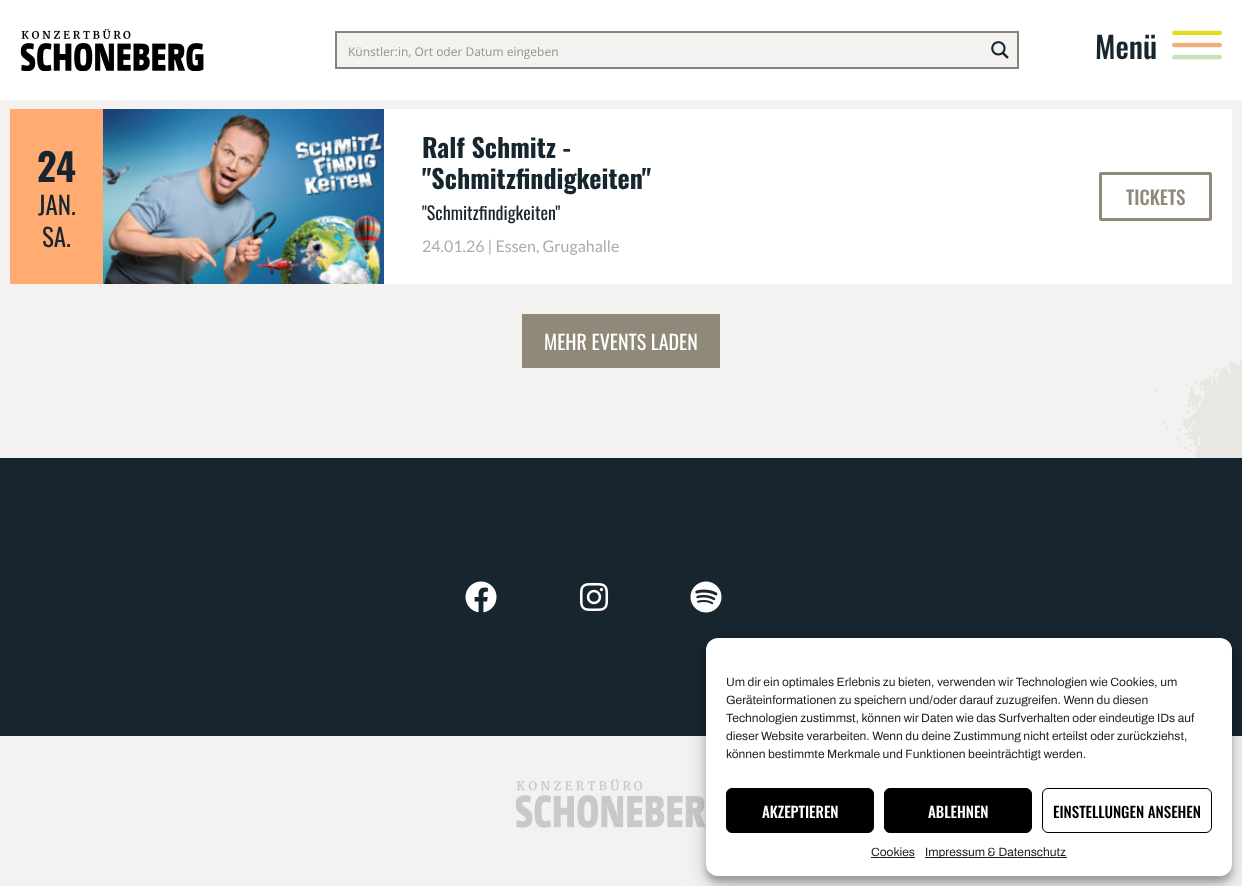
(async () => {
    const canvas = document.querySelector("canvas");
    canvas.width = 1242;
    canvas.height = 886;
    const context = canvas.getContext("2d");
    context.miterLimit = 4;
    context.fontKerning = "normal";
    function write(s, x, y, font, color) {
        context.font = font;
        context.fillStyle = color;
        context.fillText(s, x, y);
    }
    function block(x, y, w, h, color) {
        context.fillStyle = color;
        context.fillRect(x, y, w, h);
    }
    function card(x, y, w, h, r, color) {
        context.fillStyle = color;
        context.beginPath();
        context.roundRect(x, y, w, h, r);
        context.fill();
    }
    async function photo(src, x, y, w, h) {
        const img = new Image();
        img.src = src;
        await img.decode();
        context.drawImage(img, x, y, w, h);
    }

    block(0, 0, 1242, 886, "rgb(243, 242, 240)");
    block(0, 0, 1242, 100, "rgb(255, 255, 255)");
    await photo("media/1.png", 20, 29, 184, 42);
    context.fillStyle = "rgb(243, 242, 240)";
    context.beginPath();
    context.rect(336, 32, 682, 36);
    context.fill();
    context.strokeStyle = "rgb(133, 130, 120)";
    context.lineWidth = 2;
    context.stroke();
    write("Künstler:in, Ort oder Datum eingeben", 348, 56, "12px Open Sans", "rgb(150, 147, 138)");
    await photo("media/2.png", 991, 41, 18, 18);
    write("Menü", 1095, 59, "500 30px Oswald", "rgb(23, 37, 46)");
    await photo("media/3.png", 1172, 30, 50, 30);
    block(384, 109, 848, 175, "rgb(255, 255, 255)");
    block(10, 109, 93, 175, "rgb(255, 171, 114)");
    write("24", 37, 182, "bold 38px Oswald", "rgb(23, 37, 46)");
    write("JAN.", 38, 215, "25px Oswald", "rgb(23, 37, 46)");
    write("SA.", 42, 247, "25px Oswald", "rgb(23, 37, 46)");
    await photo("media/4.png", 103, 109, 281, 175);
    write("Ralf Schmitz -", 422, 158, "bold 26px Oswald", "rgb(23, 37, 46)");
    write("\"Schmitzfindigkeiten\"", 422, 189, "bold 26px Oswald", "rgb(23, 37, 46)");
    write("\"Schmitzfindigkeiten\"", 422, 220, "18px Oswald", "rgb(23, 37, 46)");
    write("24.01.26 | Essen, Grugahalle", 422, 252, "16px Lato", "rgb(172, 172, 172)");
    context.beginPath();
    context.roundRect(1100.5, 173.5, 110, 46, 0.5);
    context.strokeStyle = "rgb(144, 137, 121)";
    context.lineWidth = 3;
    context.stroke();
    write("TICKETS", 1126, 205, "500 19px Oswald", "rgb(144, 137, 121)");
    block(522, 314, 198, 54, "rgb(144, 137, 121)");
    write("MEHR EVENTS LADEN", 544, 350, "20px Oswald", "rgb(255, 255, 255)");
    await photo("media/5.png", 1154, 359, 88, 99);
    block(0, 458, 1242, 278, "rgb(23, 37, 46)");
    await photo("media/6.png", 465, 581, 32, 32);
    await photo("media/7.png", 580, 582, 29, 29);
    await photo("media/8.png", 690, 581, 32, 32);
    await photo("media/9.png", 515, 779, 190, 49);
    context.fillStyle = "rgba(0, 0, 0, 0.23)";
    context.filter = "blur(3px)";
    context.beginPath();
    context.roundRect(706, 644, 526, 238, 12);
    context.fill();
    context.filter = "none";
    context.fillStyle = "rgba(0, 0, 0, 0.19)";
    context.filter = "blur(10px)";
    context.beginPath();
    context.roundRect(706, 648, 526, 238, 12);
    context.fill();
    context.filter = "none";
    card(706, 638, 526, 238, 12, "rgb(255, 255, 255)");
    write("Um dir ein optimales Erlebnis zu bieten, verwenden wir Technologien wie Cookies, um", 726, 686, "12px Archivo", "rgb(25, 30, 35)");
    write("Geräteinformationen zu speichern und/oder darauf zuzugreifen. Wenn du diesen", 726, 704, "12px Archivo", "rgb(25, 30, 35)");
    write("Technologien zustimmst, können wir Daten wie das Surfverhalten oder eindeutige IDs auf", 726, 722, "12px Archivo", "rgb(25, 30, 35)");
    write("dieser Website verarbeiten. Wenn du deine Zustimmung nicht erteilst oder zurückziehst,", 726, 740, "12px Archivo", "rgb(25, 30, 35)");
    write("können bestimmte Merkmale und Funktionen beeinträchtigt werden.", 726, 758, "12px Archivo", "rgb(25, 30, 35)");
    context.fillStyle = "rgb(0, 0, 0)";
    context.beginPath();
    context.roundRect(726.5, 788.5, 147, 44, 5.5);
    context.fill();
    context.strokeStyle = "rgb(0, 0, 0)";
    context.lineWidth = 1;
    context.stroke();
    write("AKZEPTIEREN", 762, 818, "500 15px Oswald", "rgb(255, 255, 255)");
    context.fillStyle = "rgb(0, 0, 0)";
    context.beginPath();
    context.roundRect(884.5, 788.5, 147, 44, 5.5);
    context.fill();
    context.stroke();
    write("ABLEHNEN", 928, 818, "500 15px Oswald", "rgb(255, 255, 255)");
    context.beginPath();
    context.roundRect(1042.5, 788.5, 169, 44, 5.5);
    context.stroke();
    write("EINSTELLUNGEN ANSEHEN", 1053, 818, "500 15px Oswald", "rgb(0, 0, 0)");
    write("Cookies", 871, 856, "12px Archivo", "rgb(25, 30, 35)");
    block(871, 857, 44, 1, "rgb(25, 30, 35)");
    block(925, 857, 142, 1, "rgb(25, 30, 35)");
    write("Impressum & Datenschutz", 925, 856, "12px Archivo", "rgb(25, 30, 35)");
})();
